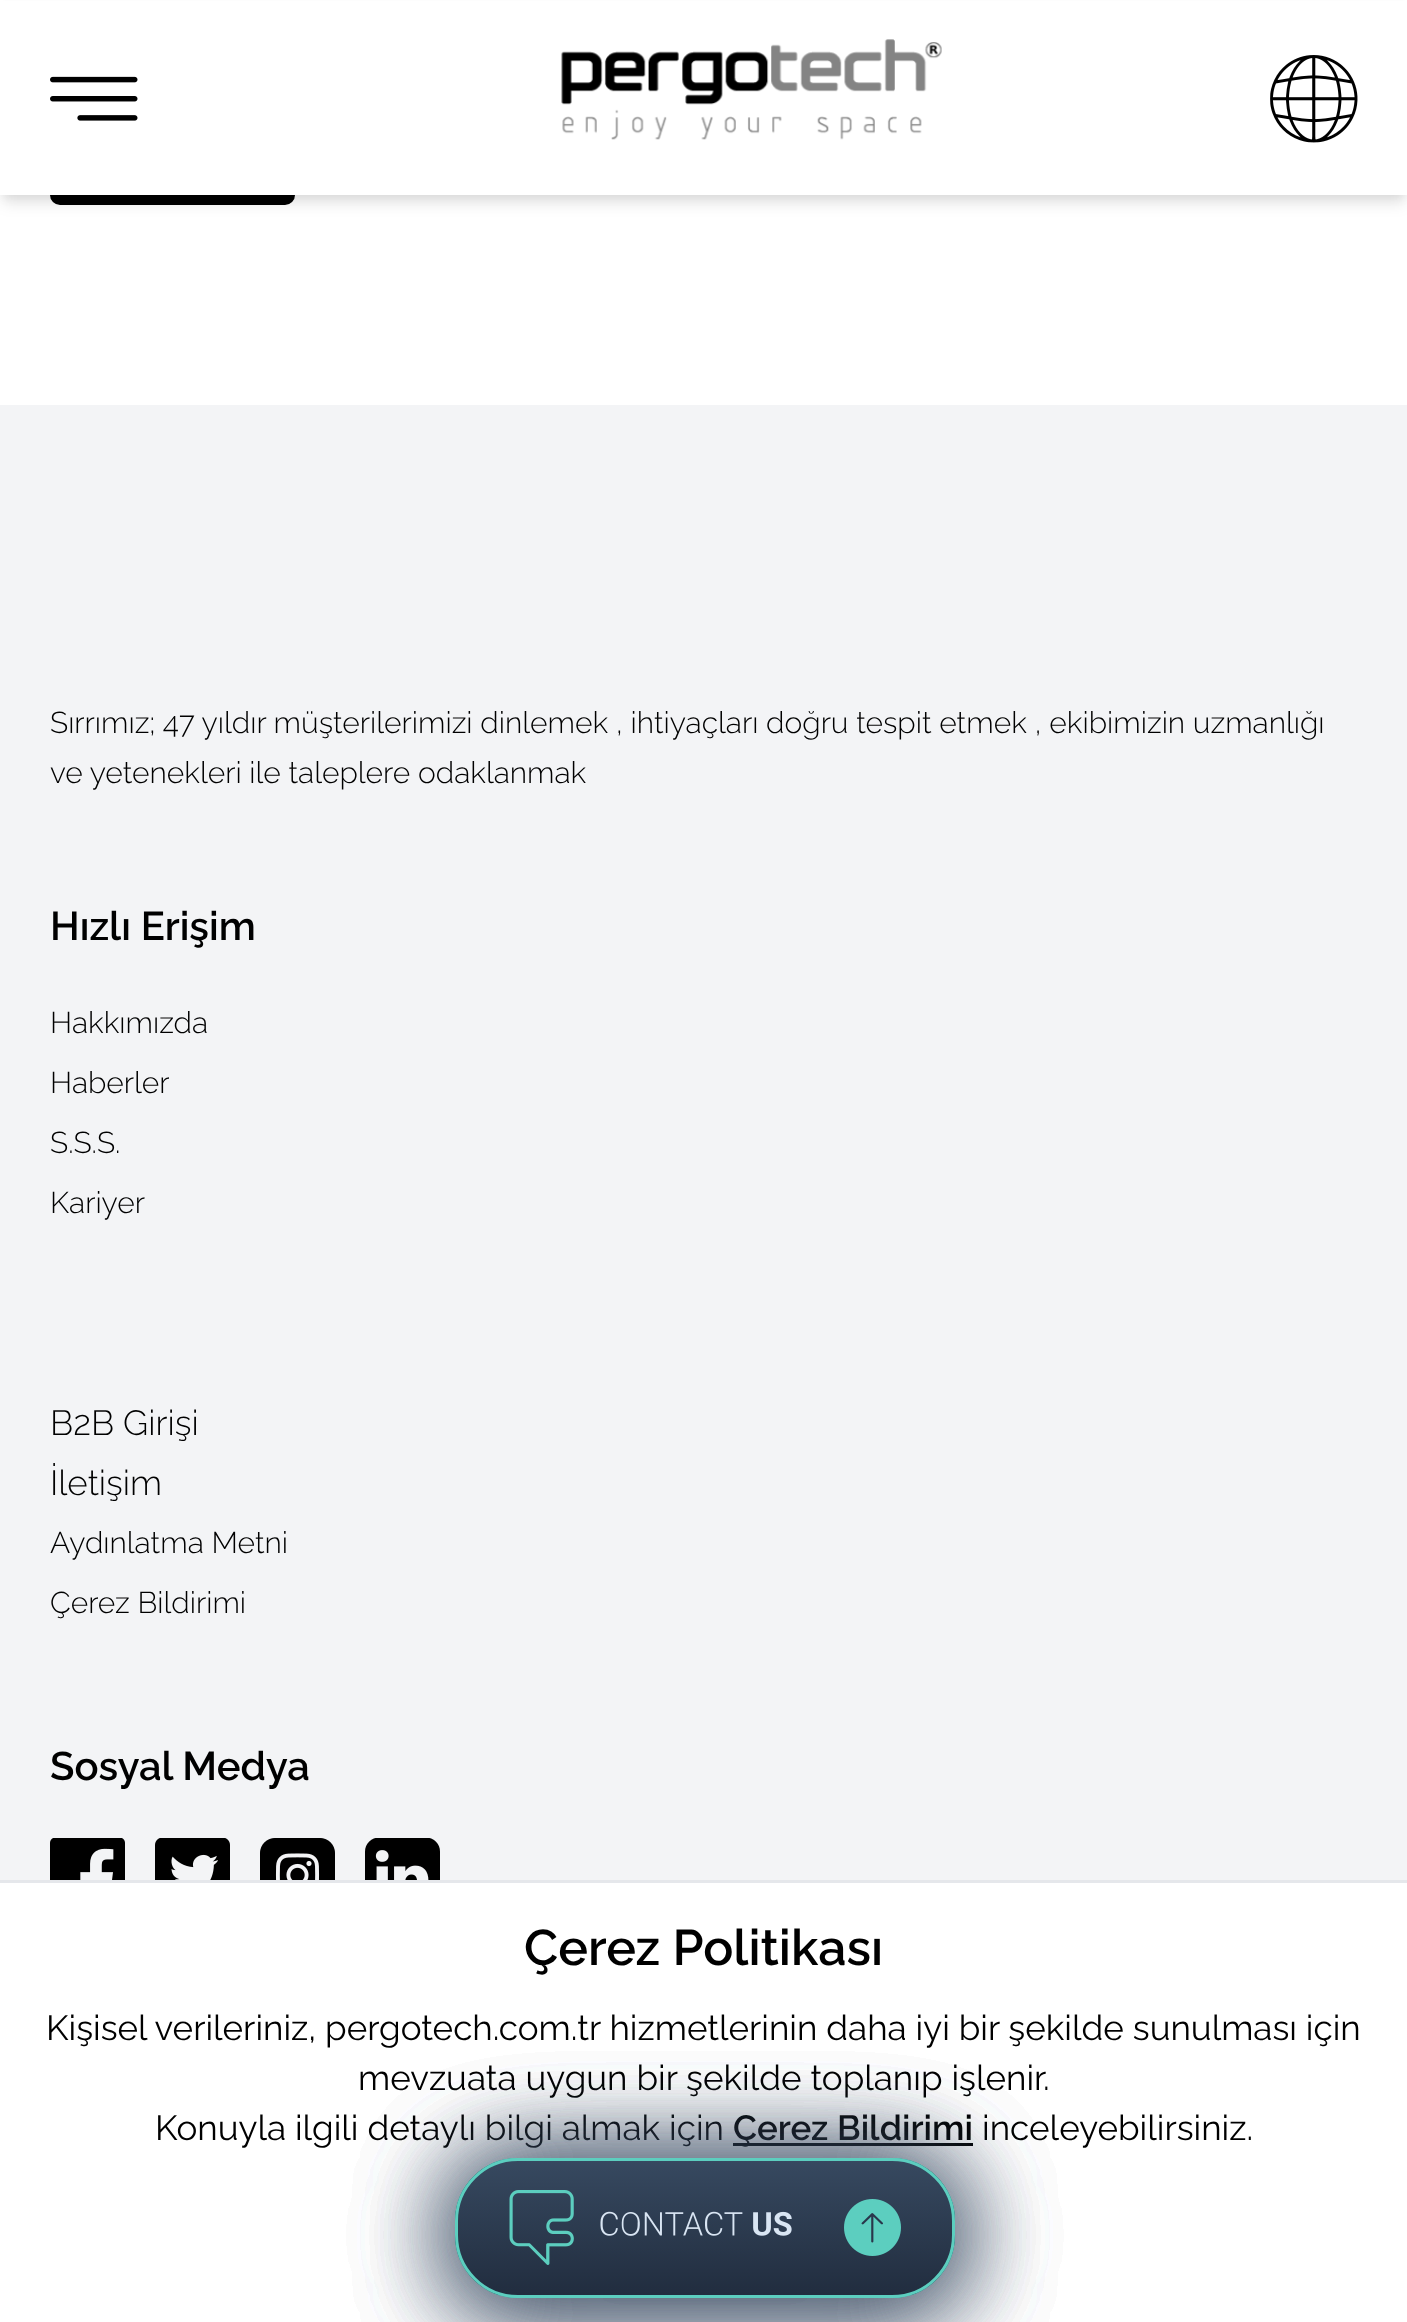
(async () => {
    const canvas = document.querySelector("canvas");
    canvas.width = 1407;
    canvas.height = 2322;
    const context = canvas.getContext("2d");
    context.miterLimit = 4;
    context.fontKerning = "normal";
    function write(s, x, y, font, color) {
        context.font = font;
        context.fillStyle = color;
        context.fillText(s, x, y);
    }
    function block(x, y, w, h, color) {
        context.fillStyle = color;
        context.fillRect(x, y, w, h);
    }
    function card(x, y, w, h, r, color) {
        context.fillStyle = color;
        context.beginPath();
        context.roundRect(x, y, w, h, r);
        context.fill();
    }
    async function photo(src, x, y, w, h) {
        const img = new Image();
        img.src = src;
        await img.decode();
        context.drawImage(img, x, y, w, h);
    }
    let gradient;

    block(0, 0, 1407, 2322, "rgb(255, 255, 255)");
    card(50, 95, 245, 110, 10, "rgb(0, 0, 0)");
    context.fillStyle = "rgba(0, 0, 0, 0.06)";
    context.filter = "blur(5px)";
    context.beginPath();
    context.rect(3, 8, 1402, 190);
    context.fill();
    context.filter = "none";
    context.fillStyle = "rgba(0, 0, 0, 0.1)";
    context.filter = "blur(7.5px)";
    context.beginPath();
    context.rect(3, 13, 1402, 190);
    context.fill();
    context.filter = "none";
    block(0, 1, 1407, 194, "rgb(255, 255, 255)");
    await photo("media/1.png", 50, 76, 88, 45);
    await photo("media/2.png", 561, 39, 381, 101);
    await photo("media/3.png", 1270, 55, 88, 88);
    block(0, 405, 1407, 1475, "rgb(243, 244, 246)");
    write("Sırrımız; 47 yıldır müşterilerimizi dinlemek , ihtiyaçları doğru tespit etmek , ekibimizin uzmanlığı", 50, 733, "300 30px Raleway", "rgb(0, 0, 0)");
    write("ve yetenekleri ile taleplere odaklanmak", 50, 783, "300 30px Raleway", "rgb(0, 0, 0)");
    write("Hızlı Erişim", 50, 940, "600 40px Raleway", "rgb(0, 0, 0)");
    write("Hakkımızda", 50, 1033, "300 30px Raleway", "rgb(0, 0, 0)");
    write("Haberler", 50, 1093, "300 30px Raleway", "rgb(0, 0, 0)");
    write("S.S.S.", 50, 1153, "300 30px Raleway", "rgb(0, 0, 0)");
    write("Kariyer", 50, 1213, "300 30px Raleway", "rgb(0, 0, 0)");
    write("B2B Girişi", 50, 1435, "300 35px Raleway", "rgb(0, 0, 0)");
    write("İletişim", 50, 1495, "300 35px Raleway", "rgb(0, 0, 0)");
    write("Aydınlatma Metni", 50, 1553, "300 30px Raleway", "rgb(0, 0, 0)");
    write("Çerez Bildirimi", 50, 1613, "300 30px Raleway", "rgb(0, 0, 0)");
    write("Sosyal Medya", 50, 1780, "600 40px Raleway", "rgb(0, 0, 0)");
    await photo("media/4.png", 50, 1838, 75, 42);
    await photo("media/5.png", 155, 1838, 75, 42);
    await photo("media/6.png", 260, 1838, 75, 42);
    await photo("media/7.png", 365, 1838, 75, 42);
    block(0, 1880, 1407, 3, "rgb(229, 231, 235)");
    write("Çerez Politikası", 524, 1965, "600 50px Raleway", "rgb(0, 0, 0)");
    write("Kişisel verileriniz, pergotech.com.tr hizmetlerinin daha iyi bir şekilde sunulması için", 46, 2040, "35px Raleway", "rgb(0, 0, 0)");
    write("mevzuata uygun bir şekilde toplanıp işlenir.", 358, 2090, "35px Raleway", "rgb(0, 0, 0)");
    write("Konuyla ilgili detaylı bilgi almak için", 155, 2140, "35px Raleway", "rgb(0, 0, 0)");
    block(733, 2143, 240, 3, "rgb(0, 0, 0)");
    write("Çerez Bildirimi", 733, 2140, "600 35px Raleway", "rgb(0, 0, 0)");
    write("inceleyebilirsiniz.", 982, 2140, "35px Raleway", "rgb(0, 0, 0)");
    context.fillStyle = "rgba(54, 72, 95, 0.5)";
    context.filter = "blur(50px)";
    context.beginPath();
    context.roundRect(455, 2165, 500, 140, 63);
    context.fill();
    context.filter = "none";
    context.beginPath();
    context.roundRect(456.5, 2159.5, 497, 137, 61.5);
    context.strokeStyle = "rgb(92, 206, 191)";
    context.lineWidth = 3;
    context.stroke();
    context.filter = "blur(50px)";
    context.beginPath();
    context.roundRect(455, 2165, 500, 140, 63);
    context.fill();
    context.filter = "none";
    context.beginPath();
    context.roundRect(456.5, 2159.5, 497, 137, 61.5);
    context.stroke();
    context.filter = "blur(50px)";
    context.beginPath();
    context.roundRect(455, 2165, 500, 140, 63);
    context.fill();
    context.filter = "none";
    context.beginPath();
    context.roundRect(456.5, 2159.5, 497, 137, 61.5);
    context.stroke();
    context.filter = "blur(50px)";
    context.beginPath();
    context.roundRect(455, 2165, 500, 140, 63);
    context.fill();
    context.filter = "none";
    context.save();
    context.beginPath();
    context.roundRect(455, 2158, 500, 140, 63);
    context.clip();
    gradient = context.createLinearGradient(705, 2160, 705, 2295);
    gradient.addColorStop(0, "rgb(55, 73, 96)");
    gradient.addColorStop(1, "rgb(33, 45, 63)");
    context.fillStyle = gradient;
    context.fillRect(455, 2160, 500, 135);
    context.restore();
    context.beginPath();
    context.roundRect(456.5, 2159.5, 497, 137, 61.5);
    context.stroke();
    await photo("media/8.png", 509, 2190, 392, 75);
})();
